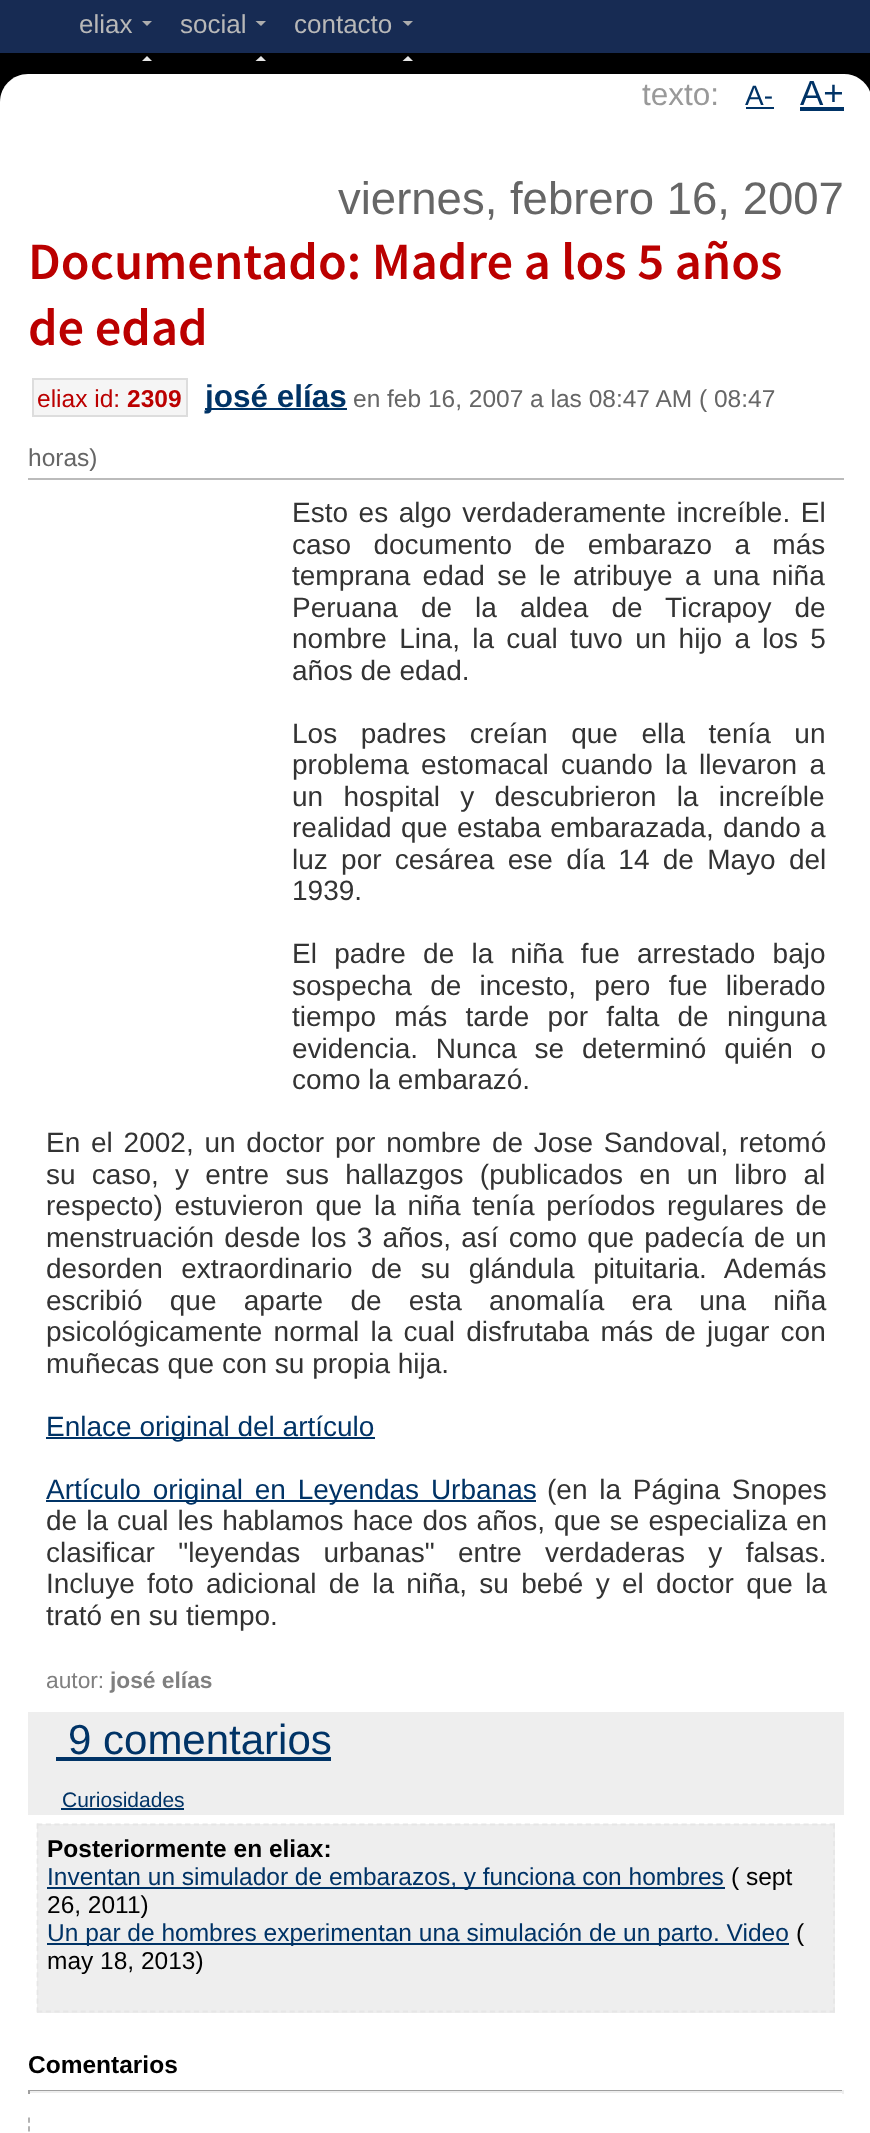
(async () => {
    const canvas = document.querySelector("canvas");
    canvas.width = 870;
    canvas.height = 2133;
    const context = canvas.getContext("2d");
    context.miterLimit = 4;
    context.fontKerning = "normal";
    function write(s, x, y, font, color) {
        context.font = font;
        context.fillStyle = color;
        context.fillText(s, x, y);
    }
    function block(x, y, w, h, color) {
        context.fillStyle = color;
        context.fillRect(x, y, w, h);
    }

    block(0, 0, 870, 2133, "rgb(0, 0, 0)");
    block(0, 0, 870, 53, "rgb(23, 43, 83)");
    write("eliax", 79, 33, "26px Liberation Sans", "rgb(184, 184, 184)");
    context.fillStyle = "rgb(173, 173, 173)";
    context.beginPath();
    context.moveTo(142, 21);
    context.lineTo(152, 21);
    context.lineTo(147, 26);
    context.closePath();
    context.fill();
    context.fillStyle = "rgb(230, 230, 230)";
    context.beginPath();
    context.moveTo(152, 61);
    context.lineTo(142, 61);
    context.lineTo(147, 56);
    context.closePath();
    context.fill();
    write("social", 180, 33, "26px Liberation Sans", "rgb(184, 184, 184)");
    context.fillStyle = "rgb(173, 173, 173)";
    context.beginPath();
    context.moveTo(255.5, 21);
    context.lineTo(266, 21);
    context.lineTo(261, 26);
    context.closePath();
    context.fill();
    context.fillStyle = "rgb(230, 230, 230)";
    context.beginPath();
    context.moveTo(266, 61);
    context.lineTo(255.5, 61);
    context.lineTo(261, 56);
    context.closePath();
    context.fill();
    write("contacto", 294, 33, "26px Liberation Sans", "rgb(184, 184, 184)");
    context.fillStyle = "rgb(173, 173, 173)";
    context.beginPath();
    context.moveTo(402.5, 21);
    context.lineTo(413, 21);
    context.lineTo(408, 26);
    context.closePath();
    context.fill();
    context.fillStyle = "rgb(230, 230, 230)";
    context.beginPath();
    context.moveTo(413, 61);
    context.lineTo(402.5, 61);
    context.lineTo(408, 56);
    context.closePath();
    context.fill();
    context.fillStyle = "rgb(255, 255, 255)";
    context.beginPath();
    context.moveTo(28, 74);
    context.lineTo(844, 74);
    context.bezierCurveTo(859.5, 74, 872, 86.5, 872, 102);
    context.lineTo(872, 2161);
    context.lineTo(0, 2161);
    context.lineTo(0, 102);
    context.bezierCurveTo(0, 86.5, 12.5, 74, 28, 74);
    context.closePath();
    context.fill();
    write("texto:", 642, 105, "31.5px Liberation Sans", "rgb(153, 153, 153)");
    write("A-", 745, 105, "28px Liberation Sans", "rgb(0, 51, 102)");
    block(746, 107, 28, 2, "rgb(0, 51, 102)");
    write("A+", 800, 105, "35px Liberation Sans", "rgb(0, 51, 102)");
    block(800, 107, 44, 4, "rgb(0, 51, 102)");
    write("viernes, febrero 16, 2007", 338, 214, "45.5px Liberation Sans", "rgb(102, 102, 102)");
    block(28, 478, 816, 2, "rgb(187, 187, 187)");
    write("Documentado: Madre a los 5 años", 28, 279, "600 52.5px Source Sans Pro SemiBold", "rgb(187, 0, 0)");
    write("de edad", 28, 345, "600 52.5px Source Sans Pro SemiBold", "rgb(187, 0, 0)");
    block(34, 380, 152, 35, "rgb(245, 245, 245)");
    write("eliax id:", 37, 407, "24.5px Liberation Sans", "rgb(187, 0, 0)");
    block(32, 378, 155, 2, "rgb(221, 221, 221)");
    block(32, 415, 94, 2, "rgb(221, 221, 221)");
    block(32, 378, 2, 39, "rgb(221, 221, 221)");
    write("2309", 127, 407, "bold 24.5px Liberation Sans", "rgb(187, 0, 0)");
    block(186, 378, 2, 39, "rgb(221, 221, 221)");
    block(126, 415, 61, 2, "rgb(221, 221, 221)");
    block(205, 408, 142, 2, "rgb(0, 51, 102)");
    write("josé elías", 205, 407, "bold 31.5px Liberation Sans", "rgb(0, 51, 102)");
    write("en feb 16, 2007 a las 08:47 AM ( 08:47", 353, 407, "24.5px Liberation Sans", "rgb(102, 102, 102)");
    write("horas)", 28, 466, "24.5px Liberation Sans", "rgb(102, 102, 102)");
    context.wordSpacing = "2.75px";
    write("Esto es algo verdaderamente increíble. El", 292, 522, "28px Liberation Sans", "rgb(51, 51, 51)");
    context.wordSpacing = "14.5px";
    write("caso documento de embarazo a más", 292, 554, "28px Liberation Sans", "rgb(51, 51, 51)");
    context.wordSpacing = "4.5px";
    write("temprana edad se le atribuye a una niña", 292, 585, "28px Liberation Sans", "rgb(51, 51, 51)");
    context.wordSpacing = "15.25px";
    write("Peruana de la aldea de Ticrapoy de", 292, 617, "28px Liberation Sans", "rgb(51, 51, 51)");
    context.wordSpacing = "4.5px";
    write("nombre Lina, la cual tuvo un hijo a los 5", 292, 648, "28px Liberation Sans", "rgb(51, 51, 51)");
    context.wordSpacing = "0px";
    write("años de edad.", 292, 680, "28px Liberation Sans", "rgb(51, 51, 51)");
    context.wordSpacing = "15.75px";
    write("Los padres creían que ella tenía un", 292, 743, "28px Liberation Sans", "rgb(51, 51, 51)");
    context.wordSpacing = "4.5px";
    write("problema estomacal cuando la llevaron a", 292, 774, "28px Liberation Sans", "rgb(51, 51, 51)");
    context.wordSpacing = "12.5px";
    write("un hospital y descubrieron la increíble", 292, 806, "28px Liberation Sans", "rgb(51, 51, 51)");
    context.wordSpacing = "1.5px";
    write("realidad que estaba embarazada, dando a", 292, 837, "28px Liberation Sans", "rgb(51, 51, 51)");
    context.wordSpacing = "5.5px";
    write("luz por cesárea ese día 14 de Mayo del", 292, 869, "28px Liberation Sans", "rgb(51, 51, 51)");
    context.wordSpacing = "0px";
    write("1939.", 292, 900, "28px Liberation Sans", "rgb(51, 51, 51)");
    context.wordSpacing = "9.5px";
    write("El padre de la niña fue arrestado bajo", 292, 963, "28px Liberation Sans", "rgb(51, 51, 51)");
    context.wordSpacing = "10.5px";
    write("sospecha de incesto, pero fue liberado", 292, 995, "28px Liberation Sans", "rgb(51, 51, 51)");
    write("tiempo más tarde por falta de ninguna", 292, 1026, "28px Liberation Sans", "rgb(51, 51, 51)");
    context.wordSpacing = "10px";
    write("evidencia. Nunca se determinó quién o", 292, 1058, "28px Liberation Sans", "rgb(51, 51, 51)");
    context.wordSpacing = "0px";
    write("como la embarazó.", 292, 1089, "28px Liberation Sans", "rgb(51, 51, 51)");
    context.wordSpacing = "3px";
    write("En el 2002, un doctor por nombre de Jose Sandoval, retomó", 46, 1152, "28px Liberation Sans", "rgb(51, 51, 51)");
    context.wordSpacing = "8.5px";
    write("su caso, y entre sus hallazgos (publicados en un libro al", 46, 1184, "28px Liberation Sans", "rgb(51, 51, 51)");
    context.wordSpacing = "4px";
    write("respecto) estuvieron que la niña tenía períodos regulares de", 46, 1215, "28px Liberation Sans", "rgb(51, 51, 51)");
    context.wordSpacing = "2.4px";
    write("menstruación desde los 3 años, así como que padecía de un", 46, 1247, "28px Liberation Sans", "rgb(51, 51, 51)");
    context.wordSpacing = "10.75px";
    write("desorden extraordinario de su glándula pituitaria. Además", 46, 1278, "28px Liberation Sans", "rgb(51, 51, 51)");
    context.wordSpacing = "19.5px";
    write("escribió que aparte de esta anomalía era una niña", 46, 1310, "28px Liberation Sans", "rgb(51, 51, 51)");
    context.wordSpacing = "3.5px";
    write("psicológicamente normal la cual disfrutaba más de jugar con", 46, 1341, "28px Liberation Sans", "rgb(51, 51, 51)");
    context.wordSpacing = "0px";
    write("muñecas que con su propia hija.", 46, 1373, "28px Liberation Sans", "rgb(51, 51, 51)");
    block(46, 1437, 329, 2, "rgb(0, 51, 102)");
    write("Enlace original del artículo", 46, 1436, "28px Liberation Sans", "rgb(0, 51, 102)");
    block(46, 1500, 490, 2, "rgb(0, 51, 102)");
    context.wordSpacing = "4px";
    write("Artículo original en Leyendas Urbanas", 46, 1499, "28px Liberation Sans", "rgb(0, 51, 102)");
    write("(en la Página Snopes", 547, 1499, "28px Liberation Sans", "rgb(51, 51, 51)");
    context.wordSpacing = "1.25px";
    write("de la cual les hablamos hace dos años, que se especializa en", 46, 1530, "28px Liberation Sans", "rgb(51, 51, 51)");
    context.wordSpacing = "15.5px";
    write("clasificar \"leyendas urbanas\" entre verdaderas y falsas.", 46, 1562, "28px Liberation Sans", "rgb(51, 51, 51)");
    context.wordSpacing = "4.5px";
    write("Incluye foto adicional de la niña, su bebé y el doctor que la", 46, 1593, "28px Liberation Sans", "rgb(51, 51, 51)");
    context.wordSpacing = "0px";
    write("trató en su tiempo.", 46, 1625, "28px Liberation Sans", "rgb(51, 51, 51)");
    write("autor:", 46, 1688, "22.75px Liberation Sans", "rgb(128, 128, 128)");
    write("josé elías", 110, 1688, "bold 22.75px Liberation Sans", "rgb(128, 128, 128)");
    block(28, 1712, 816, 103, "rgb(238, 238, 238)");
    write("9 comentarios", 68, 1754, "42px Liberation Sans", "rgb(0, 51, 102)");
    block(56, 1757, 275, 4, "rgb(0, 51, 102)");
    write("Curiosidades", 62, 1807, "21px Liberation Sans", "rgb(0, 51, 102)");
    block(61, 1808, 123, 2, "rgb(0, 51, 102)");
    block(37, 1824, 798, 189, "rgb(238, 238, 238)");
    context.beginPath();
    context.moveTo(37, 1824.5);
    context.lineTo(835, 1824.5);
    context.strokeStyle = "rgb(230, 230, 230)";
    context.lineWidth = 1.8;
    context.setLineDash([5.25, 3.46]);
    context.stroke();
    context.beginPath();
    context.moveTo(834, 1823.5);
    context.lineTo(834, 2012.5);
    context.setLineDash([5.25, 3.5]);
    context.stroke();
    context.beginPath();
    context.moveTo(37, 2011.5);
    context.lineTo(835, 2011.5);
    context.setLineDash([5.25, 3.46]);
    context.stroke();
    context.beginPath();
    context.moveTo(37.5, 1823.5);
    context.lineTo(37.5, 2012.5);
    context.setLineDash([5.25, 3.5]);
    context.stroke();
    write("Posteriormente en eliax:", 47, 1857, "bold 24.5px Liberation Sans", "rgb(0, 0, 0)");
    block(47, 1887, 678, 2, "rgb(0, 51, 102)");
    write("Inventan un simulador de embarazos, y funciona con hombres", 47, 1885, "24.5px Liberation Sans", "rgb(0, 51, 102)");
    write("( sept", 731, 1885, "24.5px Liberation Sans", "rgb(0, 0, 0)");
    write("26, 2011)", 47, 1913, "24.5px Liberation Sans", "rgb(0, 0, 0)");
    block(47, 1943, 742, 2, "rgb(0, 51, 102)");
    write("Un par de hombres experimentan una simulación de un parto. Video", 47, 1941, "24.5px Liberation Sans", "rgb(0, 51, 102)");
    write("(", 796, 1941, "24.5px Liberation Sans", "rgb(0, 0, 0)");
    write("may 18, 2013)", 47, 1969, "24.5px Liberation Sans", "rgb(0, 0, 0)");
    write("Comentarios", 28, 2073, "bold 24.5px Liberation Sans", "rgb(0, 0, 0)");
    block(28, 2090, 816, 1, "rgb(159, 159, 159)");
    block(842, 2090, 2, 4, "rgb(238, 238, 238)");
    block(28, 2091, 816, 2, "rgb(238, 238, 238)");
    block(28, 2090, 2, 4, "rgb(159, 159, 159)");
    context.beginPath();
    context.moveTo(29, 2117.5);
    context.lineTo(29, 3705);
    context.strokeStyle = "rgb(170, 170, 170)";
    context.setLineDash([5.25, 3.48]);
    context.stroke();
})();
